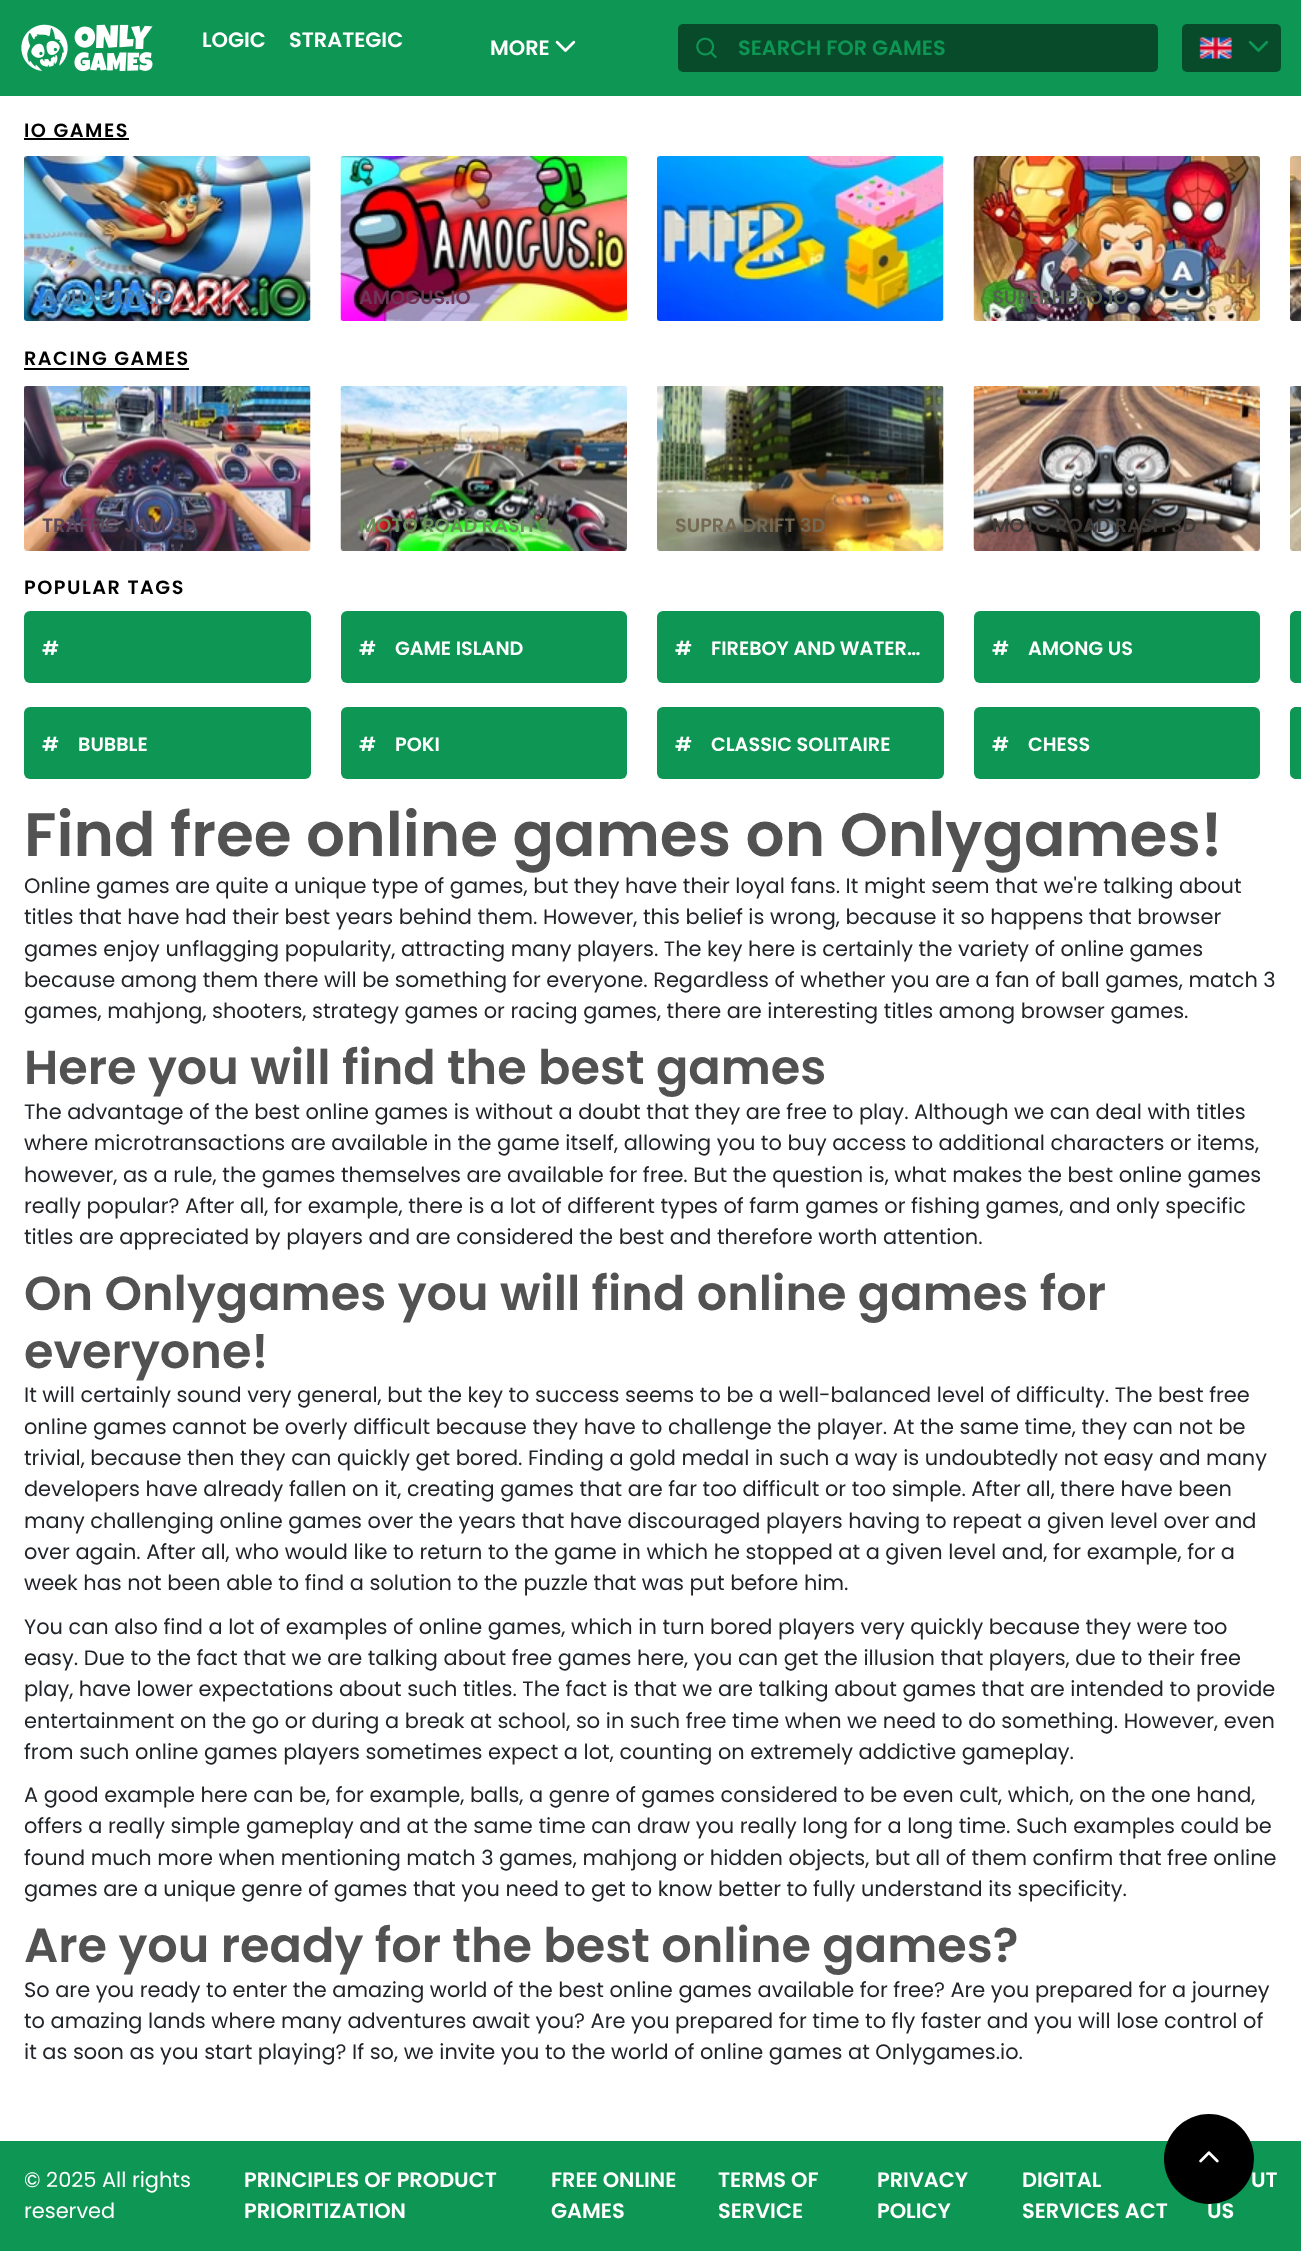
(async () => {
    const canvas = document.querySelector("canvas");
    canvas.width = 1301;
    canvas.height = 2251;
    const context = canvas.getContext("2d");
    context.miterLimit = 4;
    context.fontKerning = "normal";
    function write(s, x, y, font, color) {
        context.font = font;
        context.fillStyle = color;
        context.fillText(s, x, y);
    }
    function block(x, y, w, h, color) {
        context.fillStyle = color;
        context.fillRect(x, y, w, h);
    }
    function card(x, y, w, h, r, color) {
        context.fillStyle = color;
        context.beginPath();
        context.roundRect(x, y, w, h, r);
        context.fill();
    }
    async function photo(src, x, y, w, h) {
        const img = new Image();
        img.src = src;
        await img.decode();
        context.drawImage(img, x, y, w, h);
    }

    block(0, 0, 1301, 2251, "rgb(255, 255, 255)");
    block(0, 0, 1301, 96, "rgb(13, 150, 84)");
    await photo("media/1.png", 21, 24, 132, 48);
    write("LOGIC", 202, 47, "600 20.9px Poppins", "rgb(255, 255, 255)");
    write("STRATEGIC", 289, 47, "600 20.9px Poppins", "rgb(255, 255, 255)");
    write("MORE", 490, 55, "600 20.9px Poppins", "rgb(255, 255, 255)");
    await photo("media/2.png", 555, 40, 21, 12);
    card(678, 24, 480, 48, 5, "rgb(7, 75, 42)");
    await photo("media/3.png", 696, 37, 21, 21);
    write("SEARCH FOR GAMES", 738, 55, "600 20.9px Poppins", "rgb(13, 150, 84)");
    card(1182, 24, 99, 48, 5, "rgb(7, 75, 42)");
    await photo("media/4.png", 1199, 37, 33, 22);
    await photo("media/5.png", 1248, 40, 21, 12);
    context.letterSpacing = "1.5px";
    write("IO GAMES", 24, 137, "600 19.25px Poppins", "rgb(0, 0, 0)");
    block(24, 138, 105, 2, "rgb(0, 0, 0)");
    await photo("media/6.png", 24, 156, 287, 165);
    context.letterSpacing = "0px";
    write("AQUAPARK.IO", 42, 304, "600 19.25px Poppins", "rgb(77, 128, 173)");
    await photo("media/7.png", 340, 156, 287, 165);
    write("AMOGUS.IO", 359, 304, "600 19.25px Poppins", "rgb(110, 54, 87)");
    await photo("media/8.png", 657, 156, 287, 165);
    await photo("media/9.png", 973, 156, 287, 165);
    write("SUPERHERO.IO", 992, 304, "600 19.25px Poppins", "rgb(86, 98, 81)");
    await photo("media/10.png", 1290, 156, 11, 165);
    context.letterSpacing = "1.5px";
    write("RACING GAMES", 24, 365, "600 19.25px Poppins", "rgb(0, 0, 0)");
    block(24, 368, 165, 2, "rgb(0, 0, 0)");
    await photo("media/11.png", 24, 386, 287, 165);
    context.letterSpacing = "0px";
    write("TRAFFIC JAM 3D", 42, 532, "600 19.25px Poppins", "rgb(91, 73, 91)");
    await photo("media/12.png", 340, 386, 287, 165);
    write("MOTO ROAD RASH 3…", 359, 532, "600 19.25px Poppins", "rgb(107, 146, 90)");
    await photo("media/13.png", 657, 386, 287, 165);
    write("SUPRA DRIFT 3D", 675, 532, "600 19.25px Poppins", "rgb(116, 105, 83)");
    await photo("media/14.png", 973, 386, 287, 165);
    write("MOTO ROAD RASH 3D", 992, 532, "600 19.25px Poppins", "rgb(64, 59, 57)");
    await photo("media/15.png", 1290, 386, 11, 165);
    context.letterSpacing = "1.5px";
    write("POPULAR TAGS", 24, 594, "600 19.25px Poppins", "rgb(0, 0, 0)");
    card(24, 611, 287, 72, 6, "rgb(13, 150, 84)");
    context.letterSpacing = "0px";
    write("#", 42, 655, "600 19.25px Poppins", "rgb(255, 255, 255)");
    card(24, 707, 287, 72, 6, "rgb(13, 150, 84)");
    write("#", 42, 751, "600 19.25px Poppins", "rgb(255, 255, 255)");
    write("BUBBLE", 78, 751, "600 19.25px Poppins", "rgb(255, 255, 255)");
    card(341, 611, 286, 72, 6, "rgb(13, 150, 84)");
    write("#", 359, 655, "600 19.25px Poppins", "rgb(255, 255, 255)");
    write("GAME ISLAND", 395, 655, "600 19.25px Poppins", "rgb(255, 255, 255)");
    card(341, 707, 286, 72, 6, "rgb(13, 150, 84)");
    write("#", 359, 751, "600 19.25px Poppins", "rgb(255, 255, 255)");
    write("POKI", 395, 751, "600 19.25px Poppins", "rgb(255, 255, 255)");
    card(657, 611, 287, 72, 6, "rgb(13, 150, 84)");
    write("#", 675, 655, "600 19.25px Poppins", "rgb(255, 255, 255)");
    write("FIREBOY AND WATER…", 711, 655, "600 19.25px Poppins", "rgb(255, 255, 255)");
    card(657, 707, 287, 72, 6, "rgb(13, 150, 84)");
    write("#", 675, 751, "600 19.25px Poppins", "rgb(255, 255, 255)");
    write("CLASSIC SOLITAIRE", 711, 751, "600 19.25px Poppins", "rgb(255, 255, 255)");
    card(974, 611, 286, 72, 6, "rgb(13, 150, 84)");
    write("#", 992, 655, "600 19.25px Poppins", "rgb(255, 255, 255)");
    write("AMONG US", 1028, 655, "600 19.25px Poppins", "rgb(255, 255, 255)");
    card(974, 707, 286, 72, 6, "rgb(13, 150, 84)");
    write("#", 992, 751, "600 19.25px Poppins", "rgb(255, 255, 255)");
    write("CHESS", 1028, 751, "600 19.25px Poppins", "rgb(255, 255, 255)");
    context.fillStyle = "rgb(13, 150, 84)";
    context.beginPath();
    context.moveTo(1296, 611);
    context.lineTo(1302, 611);
    context.lineTo(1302, 683);
    context.lineTo(1296, 683);
    context.bezierCurveTo(1292.5, 683, 1290, 680.5, 1290, 677);
    context.lineTo(1290, 617);
    context.bezierCurveTo(1290, 613.5, 1292.5, 611, 1296, 611);
    context.closePath();
    context.fill();
    context.beginPath();
    context.moveTo(1296, 707);
    context.lineTo(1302, 707);
    context.lineTo(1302, 779);
    context.lineTo(1296, 779);
    context.bezierCurveTo(1292.5, 779, 1290, 776.5, 1290, 773);
    context.lineTo(1290, 713);
    context.bezierCurveTo(1290, 709.5, 1292.5, 707, 1296, 707);
    context.closePath();
    context.fill();
    write("Find free online games on Onlygames!", 24, 856, "600 61.25px Poppins", "rgb(82, 82, 82)");
    write("Online games are quite a unique type of games, but they have their loyal fans. It might seem that we're talking about", 24, 893, "20.9px Poppins", "rgb(33, 37, 41)");
    write("titles that have had their best years behind them. However, this belief is wrong, because it so happens that browser", 24, 924, "20.9px Poppins", "rgb(33, 37, 41)");
    write("games enjoy unflagging popularity, attracting many players. The key here is certainly the variety of online games", 24, 956, "20.9px Poppins", "rgb(33, 37, 41)");
    write("because among them there will be something for everyone. Regardless of whether you are a fan of ball games, match 3", 24, 987, "20.9px Poppins", "rgb(33, 37, 41)");
    write("games, mahjong, shooters, strategy games or racing games, there are interesting titles among browser games.", 24, 1018, "20.9px Poppins", "rgb(33, 37, 41)");
    write("Here you will find the best games", 24, 1084, "600 47.8px Poppins", "rgb(82, 82, 82)");
    write("The advantage of the best online games is without a doubt that they are free to play. Although we can deal with titles", 24, 1119, "20.9px Poppins", "rgb(33, 37, 41)");
    write("where microtransactions are available in the game itself, allowing you to buy access to additional characters or items,", 24, 1150, "20.9px Poppins", "rgb(33, 37, 41)");
    write("however, as a rule, the games themselves are available for free. But the question is, what makes the best online games", 24, 1182, "20.9px Poppins", "rgb(33, 37, 41)");
    write("really popular? After all, for example, there is a lot of different types of farm games or fishing games, and only specific", 24, 1213, "20.9px Poppins", "rgb(33, 37, 41)");
    write("titles are appreciated by players and are considered the best and therefore worth attention.", 24, 1244, "20.9px Poppins", "rgb(33, 37, 41)");
    write("On Onlygames you will find online games for", 24, 1310, "600 47.8px Poppins", "rgb(82, 82, 82)");
    write("everyone!", 24, 1368, "600 47.8px Poppins", "rgb(82, 82, 82)");
    write("It will certainly sound very general, but the key to success seems to be a well-balanced level of difficulty. The best free", 24, 1402, "20.9px Poppins", "rgb(33, 37, 41)");
    write("online games cannot be overly difficult because they have to challenge the player. At the same time, they can not be", 24, 1434, "20.9px Poppins", "rgb(33, 37, 41)");
    write("trivial, because then they can quickly get bored. Finding a gold medal in such a way is undoubtedly not easy and many", 24, 1465, "20.9px Poppins", "rgb(33, 37, 41)");
    write("developers have already fallen on it, creating games that are far too difficult or too simple. After all, there have been", 24, 1496, "20.9px Poppins", "rgb(33, 37, 41)");
    write("many challenging online games over the years that have discouraged players having to repeat a given level over and", 24, 1528, "20.9px Poppins", "rgb(33, 37, 41)");
    write("over again. After all, who would like to return to the game in which he stopped at a given level and, for example, for a", 24, 1559, "20.9px Poppins", "rgb(33, 37, 41)");
    write("week has not been able to find a solution to the puzzle that was put before him.", 24, 1590, "20.9px Poppins", "rgb(33, 37, 41)");
    write("You can also find a lot of examples of online games, which in turn bored players very quickly because they were too", 24, 1634, "20.9px Poppins", "rgb(33, 37, 41)");
    write("easy. Due to the fact that we are talking about free games here, you can get the illusion that players, due to their free", 24, 1665, "20.9px Poppins", "rgb(33, 37, 41)");
    write("play, have lower expectations about such titles. The fact is that we are talking about games that are intended to provide", 24, 1696, "20.9px Poppins", "rgb(33, 37, 41)");
    write("entertainment on the go or during a break at school, so in such free time when we need to do something. However, even", 24, 1728, "20.9px Poppins", "rgb(33, 37, 41)");
    write("from such online games players sometimes expect a lot, counting on extremely addictive gameplay.", 24, 1759, "20.9px Poppins", "rgb(33, 37, 41)");
    write("A good example here can be, for example, balls, a genre of games considered to be even cult, which, on the one hand,", 24, 1802, "20.9px Poppins", "rgb(33, 37, 41)");
    write("offers a really simple gameplay and at the same time can draw you really long for a long time. Such examples could be", 24, 1833, "20.9px Poppins", "rgb(33, 37, 41)");
    write("found much more when mentioning match 3 games, mahjong or hidden objects, but all of them confirm that free online", 24, 1865, "20.9px Poppins", "rgb(33, 37, 41)");
    write("games are a unique genre of games that you need to get to know better to fully understand its specificity.", 24, 1896, "20.9px Poppins", "rgb(33, 37, 41)");
    write("Are you ready for the best online games?", 24, 1962, "600 47.8px Poppins", "rgb(82, 82, 82)");
    write("So are you ready to enter the amazing world of the best online games available for free? Are you prepared for a journey", 24, 1997, "20.9px Poppins", "rgb(33, 37, 41)");
    write("to amazing lands where many adventures await you? Are you prepared for time to fly faster and you will lose control of", 24, 2028, "20.9px Poppins", "rgb(33, 37, 41)");
    write("it as soon as you start playing? If so, we invite you to the world of online games at Onlygames.io.", 24, 2059, "20.9px Poppins", "rgb(33, 37, 41)");
    block(0, 2141, 1301, 110, "rgb(13, 150, 84)");
    write("© 2025 All rights", 24, 2187, "20.9px Poppins", "rgb(255, 255, 255)");
    write("reserved", 24, 2218, "20.9px Poppins", "rgb(255, 255, 255)");
    write("PRINCIPLES OF PRODUCT", 244, 2187, "600 20.9px Poppins", "rgb(255, 255, 255)");
    write("PRIORITIZATION", 244, 2218, "600 20.9px Poppins", "rgb(255, 255, 255)");
    write("FREE ONLINE", 551, 2187, "600 20.9px Poppins", "rgb(255, 255, 255)");
    write("GAMES", 551, 2218, "600 20.9px Poppins", "rgb(255, 255, 255)");
    write("TERMS OF", 718, 2187, "600 20.9px Poppins", "rgb(255, 255, 255)");
    write("SERVICE", 718, 2218, "600 20.9px Poppins", "rgb(255, 255, 255)");
    write("PRIVACY", 877, 2187, "600 20.9px Poppins", "rgb(255, 255, 255)");
    write("POLICY", 877, 2218, "600 20.9px Poppins", "rgb(255, 255, 255)");
    write("DIGITAL", 1022, 2187, "600 20.9px Poppins", "rgb(255, 255, 255)");
    write("SERVICES ACT", 1022, 2218, "600 20.9px Poppins", "rgb(255, 255, 255)");
    write("UT", 1251, 2187, "600 20.9px Poppins", "rgb(255, 255, 255)");
    write("US", 1207, 2218, "600 20.9px Poppins", "rgb(255, 255, 255)");
    context.fillStyle = "rgb(0, 0, 0)";
    context.beginPath();
    context.arc(1209, 2159, 45, 0, Math.PI * 2);
    context.fill();
    await photo("media/16.png", 1199, 2151, 20, 12);
})();
